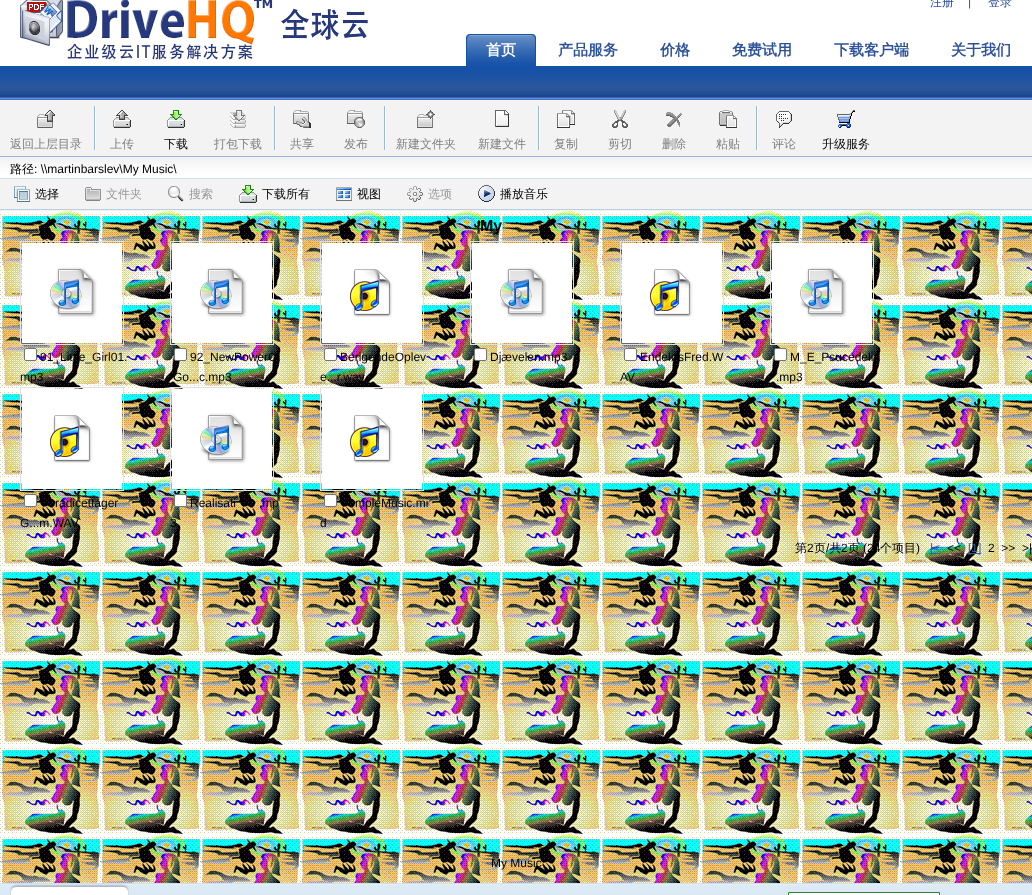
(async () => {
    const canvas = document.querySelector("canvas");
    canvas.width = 1032;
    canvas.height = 895;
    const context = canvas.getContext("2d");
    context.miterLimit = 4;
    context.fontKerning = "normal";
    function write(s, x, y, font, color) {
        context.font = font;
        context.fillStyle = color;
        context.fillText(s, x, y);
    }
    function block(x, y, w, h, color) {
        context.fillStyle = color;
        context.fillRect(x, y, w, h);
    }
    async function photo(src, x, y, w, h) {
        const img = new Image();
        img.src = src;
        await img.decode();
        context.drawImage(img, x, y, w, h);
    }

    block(0, 0, 1032, 895, "rgb(255, 255, 255)");
    await photo("media/1.png", 0, 66, 1032, 34);
    await photo("media/2.png", 20, 0, 348, 60);
    write("注册", 930, 6, "500 12px WenQuanYi Zen Hei", "rgb(46, 82, 153)");
    write("|", 968, 6, "12px Liberation Sans", "rgb(46, 82, 153)");
    write("登录", 988, 6, "500 12px WenQuanYi Zen Hei", "rgb(46, 82, 153)");
    await photo("media/3.png", 466, 34, 4, 32);
    await photo("media/4.png", 470, 34, 66, 32);
    write("首页", 486, 55, "bold 15px WenQuanYi Zen Hei", "rgb(255, 255, 255)");
    write("产品服务", 558, 55, "bold 15px WenQuanYi Zen Hei", "rgb(46, 82, 153)");
    write("价格", 660, 55, "bold 15px WenQuanYi Zen Hei", "rgb(46, 82, 153)");
    write("免费试用", 732, 55, "bold 15px WenQuanYi Zen Hei", "rgb(46, 82, 153)");
    write("下载客户端", 834, 55, "bold 15px WenQuanYi Zen Hei", "rgb(46, 82, 153)");
    write("关于我们", 951, 55, "bold 15px WenQuanYi Zen Hei", "rgb(46, 82, 153)");
    block(0, 100, 1032, 56, "rgb(243, 243, 243)");
    block(0, 156, 1032, 1, "rgb(155, 185, 215)");
    await photo("media/5.png", 37, 110, 18, 18);
    write("返回上层目录", 10, 148, "500 12px WenQuanYi Zen Hei", "rgb(128, 128, 128)");
    await photo("media/6.png", 94, 106, 2, 44);
    await photo("media/7.png", 113, 110, 18, 18);
    write("上传", 110, 148, "500 12px WenQuanYi Zen Hei", "rgb(128, 128, 128)");
    await photo("media/8.png", 167, 110, 18, 18);
    write("下载", 164, 148, "500 12px WenQuanYi Zen Hei", "rgb(1, 0, 0)");
    await photo("media/9.png", 230, 110, 16, 18);
    write("打包下载", 214, 148, "500 12px WenQuanYi Zen Hei", "rgb(128, 128, 128)");
    await photo("media/6.png", 274, 106, 2, 44);
    await photo("media/10.png", 293, 110, 18, 18);
    write("共享", 290, 148, "500 12px WenQuanYi Zen Hei", "rgb(128, 128, 128)");
    await photo("media/11.png", 347, 110, 18, 18);
    write("发布", 344, 148, "500 12px WenQuanYi Zen Hei", "rgb(128, 128, 128)");
    await photo("media/6.png", 384, 106, 2, 44);
    await photo("media/12.png", 417, 110, 18, 18);
    write("新建文件夹", 396, 148, "500 12px WenQuanYi Zen Hei", "rgb(128, 128, 128)");
    await photo("media/13.png", 495, 110, 14, 17);
    write("新建文件", 478, 148, "500 12px WenQuanYi Zen Hei", "rgb(128, 128, 128)");
    await photo("media/6.png", 538, 106, 2, 44);
    await photo("media/14.png", 557, 110, 18, 18);
    write("复制", 554, 148, "500 12px WenQuanYi Zen Hei", "rgb(128, 128, 128)");
    await photo("media/15.png", 612, 110, 16, 18);
    write("剪切", 608, 148, "500 12px WenQuanYi Zen Hei", "rgb(128, 128, 128)");
    await photo("media/16.png", 666, 112, 16, 15);
    write("删除", 662, 148, "500 12px WenQuanYi Zen Hei", "rgb(128, 128, 128)");
    await photo("media/17.png", 719, 110, 18, 18);
    write("粘贴", 716, 148, "500 12px WenQuanYi Zen Hei", "rgb(128, 128, 128)");
    await photo("media/6.png", 756, 106, 2, 44);
    await photo("media/18.png", 776, 111, 16, 17);
    write("评论", 772, 148, "500 12px WenQuanYi Zen Hei", "rgb(128, 128, 128)");
    await photo("media/19.png", 837, 110, 18, 18);
    write("升级服务", 822, 148, "500 12px WenQuanYi Zen Hei", "rgb(1, 0, 0)");
    await photo("media/20.png", 0, 157, 1032, 54);
    write("路径", 10, 173, "500 12px WenQuanYi Zen Hei", "rgb(1, 0, 0)");
    write(": \\\\martinbarslev\\My Music\\", 34, 173, "12px Liberation Sans", "rgb(1, 0, 0)");
    await photo("media/21.png", 14, 186, 16, 16);
    write("选择", 35, 198, "500 12px WenQuanYi Zen Hei", "rgb(1, 0, 0)");
    await photo("media/22.png", 85, 187, 16, 14);
    write("文件夹", 106, 198, "500 12px WenQuanYi Zen Hei", "rgb(153, 153, 153)");
    await photo("media/23.png", 168, 186, 16, 16);
    write("搜索", 189, 198, "500 12px WenQuanYi Zen Hei", "rgb(153, 153, 153)");
    await photo("media/8.png", 239, 185, 18, 18);
    write("下载所有", 262, 198, "500 12px WenQuanYi Zen Hei", "rgb(1, 0, 0)");
    await photo("media/24.png", 336, 187, 16, 14);
    write("视图", 357, 198, "500 12px WenQuanYi Zen Hei", "rgb(1, 0, 0)");
    await photo("media/25.png", 407, 186, 16, 16);
    write("选项", 428, 198, "500 12px WenQuanYi Zen Hei", "rgb(153, 153, 153)");
    await photo("media/26.png", 478, 185, 17, 17);
    write("播放音乐", 500, 198, "500 12px WenQuanYi Zen Hei", "rgb(1, 0, 0)");
    await photo("media/27.png", 0, 211, 1032, 672);
    write("My", 480, 231, "bold 16px Liberation Sans", "rgb(1, 0, 0)");
    context.strokeStyle = "rgb(225, 225, 225)";
    context.strokeRect(20.5, 241.5, 103, 103);
    await photo("media/28.png", 22, 243, 100, 100);
    context.fillStyle = "rgb(255, 255, 255)";
    context.beginPath();
    context.roundRect(24.5, 348.5, 12, 12, 1.5);
    context.fill();
    context.strokeStyle = "rgb(118, 118, 118)";
    context.stroke();
    write("91_Little_Girl01.", 40, 361, "12px Liberation Sans", "rgb(1, 0, 0)");
    write("mp3", 20, 381, "12px Liberation Sans", "rgb(1, 0, 0)");
    context.strokeStyle = "rgb(225, 225, 225)";
    context.strokeRect(170.5, 241.5, 103, 103);
    await photo("media/28.png", 172, 243, 100, 100);
    context.fillStyle = "rgb(255, 255, 255)";
    context.beginPath();
    context.roundRect(174.5, 348.5, 12, 12, 1.5);
    context.fill();
    context.strokeStyle = "rgb(118, 118, 118)";
    context.stroke();
    write("92_NewPowerO", 190, 361, "12px Liberation Sans", "rgb(1, 0, 0)");
    write("Go...c.mp3", 173, 381, "12px Liberation Sans", "rgb(1, 0, 0)");
    context.strokeStyle = "rgb(225, 225, 225)";
    context.strokeRect(320.5, 241.5, 103, 103);
    await photo("media/29.png", 322, 243, 100, 100);
    context.fillStyle = "rgb(255, 255, 255)";
    context.beginPath();
    context.roundRect(324.5, 348.5, 12, 12, 1.5);
    context.fill();
    context.strokeStyle = "rgb(118, 118, 118)";
    context.stroke();
    write("BerigendeOplev", 340, 361, "12px Liberation Sans", "rgb(1, 0, 0)");
    write("e...r.wav", 320, 381, "12px Liberation Sans", "rgb(1, 0, 0)");
    context.strokeStyle = "rgb(225, 225, 225)";
    context.strokeRect(470.5, 241.5, 103, 103);
    await photo("media/28.png", 472, 243, 100, 100);
    context.fillStyle = "rgb(255, 255, 255)";
    context.beginPath();
    context.roundRect(474.5, 348.5, 12, 12, 1.5);
    context.fill();
    context.strokeStyle = "rgb(118, 118, 118)";
    context.stroke();
    write("Djævelen.mp3", 490, 361, "12px Liberation Sans", "rgb(1, 0, 0)");
    context.strokeStyle = "rgb(225, 225, 225)";
    context.strokeRect(620.5, 241.5, 103, 103);
    await photo("media/29.png", 622, 243, 100, 100);
    context.fillStyle = "rgb(255, 255, 255)";
    context.beginPath();
    context.roundRect(624.5, 348.5, 12, 12, 1.5);
    context.fill();
    context.strokeStyle = "rgb(118, 118, 118)";
    context.stroke();
    write("EndeløsFred.W", 640, 361, "12px Liberation Sans", "rgb(1, 0, 0)");
    write("AV", 620, 381, "12px Liberation Sans", "rgb(1, 0, 0)");
    context.strokeStyle = "rgb(225, 225, 225)";
    context.strokeRect(770.5, 241.5, 103, 103);
    await photo("media/28.png", 772, 243, 100, 100);
    context.fillStyle = "rgb(255, 255, 255)";
    context.beginPath();
    context.roundRect(774.5, 348.5, 12, 12, 1.5);
    context.fill();
    context.strokeStyle = "rgb(118, 118, 118)";
    context.stroke();
    write("M_E_Psucedeli", 790, 361, "12px Liberation Sans", "rgb(1, 0, 0)");
    write(".mp3", 776, 381, "12px Liberation Sans", "rgb(1, 0, 0)");
    context.strokeStyle = "rgb(225, 225, 225)";
    context.strokeRect(20.5, 387.5, 103, 103);
    await photo("media/29.png", 22, 389, 100, 100);
    context.fillStyle = "rgb(255, 255, 255)";
    context.beginPath();
    context.roundRect(24.5, 494.5, 12, 12, 1.5);
    context.fill();
    context.strokeStyle = "rgb(118, 118, 118)";
    context.stroke();
    write("radicettager", 55, 507, "12px Liberation Sans", "rgb(1, 0, 0)");
    write("G...m.WAV", 20, 527, "12px Liberation Sans", "rgb(1, 0, 0)");
    context.strokeStyle = "rgb(225, 225, 225)";
    context.strokeRect(170.5, 387.5, 103, 103);
    await photo("media/28.png", 172, 389, 100, 100);
    context.fillStyle = "rgb(255, 255, 255)";
    context.beginPath();
    context.roundRect(174.5, 494.5, 12, 12, 1.5);
    context.fill();
    context.strokeStyle = "rgb(118, 118, 118)";
    context.stroke();
    write("Realisati", 190, 507, "12px Liberation Sans", "rgb(1, 0, 0)");
    write(".mp", 259, 507, "12px Liberation Sans", "rgb(1, 0, 0)");
    write("3", 170, 527, "12px Liberation Sans", "rgb(1, 0, 0)");
    context.strokeStyle = "rgb(225, 225, 225)";
    context.strokeRect(320.5, 387.5, 103, 103);
    await photo("media/29.png", 322, 389, 100, 100);
    context.fillStyle = "rgb(255, 255, 255)";
    context.beginPath();
    context.roundRect(324.5, 494.5, 12, 12, 1.5);
    context.fill();
    context.strokeStyle = "rgb(118, 118, 118)";
    context.stroke();
    write("mpleMusic.mi", 355, 507, "12px Liberation Sans", "rgb(1, 0, 0)");
    write("d", 320, 527, "12px Liberation Sans", "rgb(1, 0, 0)");
    write("第", 795, 552, "500 12px WenQuanYi Zen Hei", "rgb(1, 0, 0)");
    write("2", 807, 552, "12px Liberation Sans", "rgb(1, 0, 0)");
    write("页 共", 814, 552, "500 12px WenQuanYi Zen Hei", "rgb(1, 0, 0)");
    write("2", 841, 552, "12px Liberation Sans", "rgb(1, 0, 0)");
    write("页", 848, 552, "500 12px WenQuanYi Zen Hei", "rgb(1, 0, 0)");
    write("个项目", 880, 552, "500 12px WenQuanYi Zen Hei", "rgb(1, 0, 0)");
    write("/", 826, 552, "12px Liberation Sans", "rgb(1, 0, 0)");
    write("(24", 863, 552, "12px Liberation Sans", "rgb(1, 0, 0)");
    write(")", 916, 552, "12px Liberation Sans", "rgb(1, 0, 0)");
    block(930, 553, 10, 1, "rgb(52, 93, 154)");
    write("|<", 930, 552, "12px Liberation Sans", "rgb(52, 93, 154)");
    write("<<", 947, 552, "12px Liberation Sans", "rgb(1, 0, 0)");
    block(968, 553, 13, 1, "rgb(52, 93, 154)");
    write("[1]", 968, 552, "12px Liberation Sans", "rgb(52, 93, 154)");
    write("2  >>  >|", 988, 552, "12px Liberation Sans", "rgb(1, 0, 0)");
    write("My Music", 491, 867, "12px Liberation Sans", "rgb(1, 0, 0)");
    await photo("media/30.png", 0, 883, 1032, 12);
    await photo("media/31.png", 10, 884, 119, 11);
    context.fillStyle = "rgb(255, 255, 255)";
    context.beginPath();
    context.rect(788.5, 892.5, 151, 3);
    context.fill();
    context.strokeStyle = "rgb(48, 128, 56)";
    context.stroke();
})();
